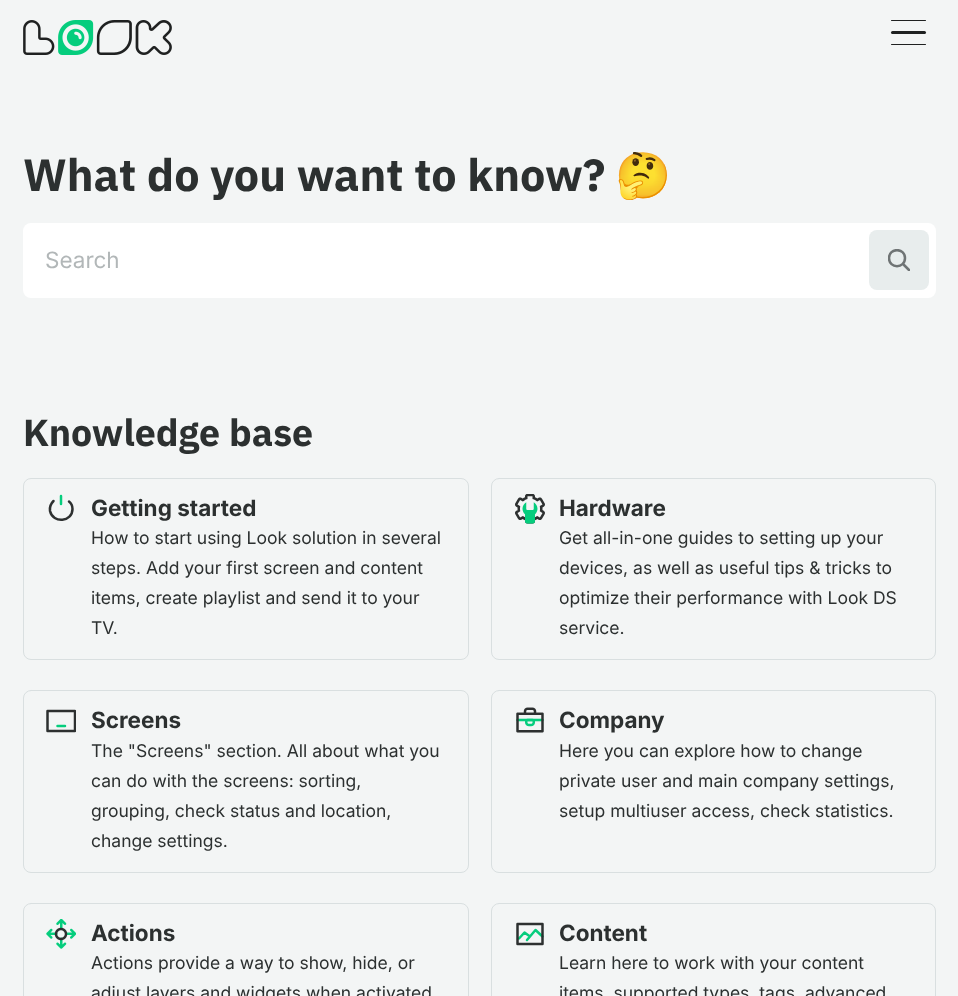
(async () => {
    const canvas = document.querySelector("canvas");
    canvas.width = 958;
    canvas.height = 996;
    const context = canvas.getContext("2d");
    context.miterLimit = 4;
    context.fontKerning = "normal";
    function write(s, x, y, font, color) {
        context.font = font;
        context.fillStyle = color;
        context.fillText(s, x, y);
    }
    function block(x, y, w, h, color) {
        context.fillStyle = color;
        context.fillRect(x, y, w, h);
    }
    function card(x, y, w, h, r, color) {
        context.fillStyle = color;
        context.beginPath();
        context.roundRect(x, y, w, h, r);
        context.fill();
    }
    async function photo(src, x, y, w, h) {
        const img = new Image();
        img.src = src;
        await img.decode();
        context.drawImage(img, x, y, w, h);
    }

    block(0, 0, 958, 996, "rgb(243, 245, 245)");
    await photo("media/1.png", 23, 20, 149, 35);
    card(891, 20, 35, 1, 0.5, "rgb(31, 33, 33)");
    card(891, 31, 35, 3, 1.5, "rgb(31, 33, 33)");
    card(891, 44, 35, 1, 0.5, "rgb(31, 33, 33)");
    write("What do you want to know?", 23, 191, "bold 45px IBM Plex Sans", "rgb(44, 48, 48)");
    write("🤔", 615, 191, "bold 45px Noto Color Emoji", "rgb(44, 48, 48)");
    card(23, 223, 913, 75, 8, "rgb(255, 255, 255)");
    write("Search", 45, 268, "22.5px Inter", "rgb(178, 183, 184)");
    card(869, 230, 60, 60, 8, "rgb(232, 237, 237)");
    context.save();
    context.beginPath();
    context.rect(888, 249, 22, 22);
    context.clip();
    context.beginPath();
    context.moveTo(904, 265);
    context.lineTo(909, 270);
    context.moveTo(889, 258);
    context.bezierCurveTo(889, 269, 905, 269, 905, 258);
    context.bezierCurveTo(905, 247.5, 889, 247.5, 889, 258);
    context.closePath();
    context.strokeStyle = "rgb(111, 116, 117)";
    context.lineWidth = 2.5;
    context.lineCap = "round";
    context.stroke();
    context.restore();
    write("Knowledge base", 23, 446, "bold 37.5px IBM Plex Sans", "rgb(44, 48, 48)");
    context.beginPath();
    context.roundRect(23.5, 478.5, 445, 181, 7.5);
    context.strokeStyle = "rgb(217, 223, 224)";
    context.stroke();
    context.beginPath();
    context.moveTo(69, 501.5);
    context.bezierCurveTo(71.5, 503.5, 72.5, 506, 72.5, 509);
    context.bezierCurveTo(72.5, 522, 53, 524, 50, 511);
    context.bezierCurveTo(49.5, 507.5, 50.5, 504, 53.5, 501);
    context.strokeStyle = "rgb(45, 48, 48)";
    context.lineWidth = 2.5;
    context.lineCap = "round";
    context.stroke();
    context.beginPath();
    context.moveTo(61, 496);
    context.lineTo(61, 504);
    context.strokeStyle = "rgb(5, 205, 125)";
    context.stroke();
    write("Getting started", 91, 516, "bold 22.5px Inter", "rgb(44, 48, 48)");
    write("How to start using Look solution in several", 91, 544, "17.5px Inter", "rgb(44, 48, 48)");
    write("steps. Add your first screen and content", 91, 574, "17.5px Inter", "rgb(44, 48, 48)");
    write("items, create playlist and send it to your", 91, 604, "17.5px Inter", "rgb(44, 48, 48)");
    write("TV.", 91, 634, "17.5px Inter", "rgb(44, 48, 48)");
    context.beginPath();
    context.roundRect(491.5, 478.5, 444, 181, 7.5);
    context.strokeStyle = "rgb(217, 223, 224)";
    context.lineWidth = 1;
    context.stroke();
    await photo("media/2.png", 515, 494, 30, 30);
    write("Hardware", 559, 516, "bold 22.5px Inter", "rgb(44, 48, 48)");
    write("Get all-in-one guides to setting up your", 559, 544, "17.5px Inter", "rgb(44, 48, 48)");
    write("devices, as well as useful tips & tricks to", 559, 574, "17.5px Inter", "rgb(44, 48, 48)");
    write("optimize their performance with Look DS", 559, 604, "17.5px Inter", "rgb(44, 48, 48)");
    write("service.", 559, 634, "17.5px Inter", "rgb(44, 48, 48)");
    context.beginPath();
    context.roundRect(23.5, 690.5, 445, 182, 7.5);
    context.stroke();
    context.save();
    context.beginPath();
    context.rect(46, 706, 30, 30);
    context.clip();
    context.beginPath();
    context.moveTo(47.5, 711);
    context.lineTo(75, 711);
    context.lineTo(75, 731);
    context.lineTo(47.5, 731);
    context.closePath();
    context.strokeStyle = "rgb(45, 48, 48)";
    context.lineWidth = 2.5;
    context.lineJoin = "round";
    context.stroke();
    context.restore();
    context.beginPath();
    context.moveTo(57.5, 726);
    context.lineTo(65, 726);
    context.strokeStyle = "rgb(5, 205, 125)";
    context.lineWidth = 2.5;
    context.lineJoin = "round";
    context.stroke();
    write("Screens", 91, 728, "bold 22.5px Inter", "rgb(44, 48, 48)");
    write("The \"Screens\" section. All about what you", 91, 757, "17.5px Inter", "rgb(44, 48, 48)");
    write("can do with the screens: sorting,", 91, 787, "17.5px Inter", "rgb(44, 48, 48)");
    write("grouping, check status and location,", 91, 817, "17.5px Inter", "rgb(44, 48, 48)");
    write("change settings.", 91, 847, "17.5px Inter", "rgb(44, 48, 48)");
    context.beginPath();
    context.roundRect(491.5, 690.5, 444, 182, 7.5);
    context.strokeStyle = "rgb(217, 223, 224)";
    context.lineWidth = 1;
    context.lineJoin = "miter";
    context.stroke();
    await photo("media/3.png", 516, 707, 28, 26);
    write("Company", 559, 728, "bold 22.5px Inter", "rgb(44, 48, 48)");
    write("Here you can explore how to change", 559, 757, "17.5px Inter", "rgb(44, 48, 48)");
    write("private user and main company settings,", 559, 787, "17.5px Inter", "rgb(44, 48, 48)");
    write("setup multiuser access, check statistics.", 559, 817, "17.5px Inter", "rgb(44, 48, 48)");
    context.beginPath();
    context.roundRect(23.5, 903.5, 445, 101, 7.5);
    context.stroke();
    await photo("media/4.png", 46, 919, 30, 30);
    write("Actions", 91, 941, "bold 22.5px Inter", "rgb(44, 48, 48)");
    write("Actions provide a way to show, hide, or", 91, 969, "17.5px Inter", "rgb(44, 48, 48)");
    write("adjust layers and widgets when activated", 91, 999, "17.5px Inter", "rgb(44, 48, 48)");
    context.beginPath();
    context.roundRect(491.5, 903.5, 444, 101, 7.5);
    context.stroke();
    context.beginPath();
    context.moveTo(519, 938.5);
    context.lineTo(524.5, 932.5);
    context.lineTo(530, 936.5);
    context.lineTo(527, 940);
    context.lineTo(535.5, 930);
    context.lineTo(542.5, 936.5);
    context.strokeStyle = "rgb(5, 205, 125)";
    context.lineWidth = 2.5;
    context.lineJoin = "round";
    context.stroke();
    context.beginPath();
    context.moveTo(517.5, 924);
    context.lineTo(542.5, 924);
    context.lineTo(542.5, 944);
    context.lineTo(517.5, 944);
    context.closePath();
    context.strokeStyle = "rgb(45, 48, 48)";
    context.stroke();
    write("Content", 559, 941, "bold 22.5px Inter", "rgb(44, 48, 48)");
    write("Learn here to work with your content", 559, 969, "17.5px Inter", "rgb(44, 48, 48)");
    write("items, supported types, tags, advanced", 559, 999, "17.5px Inter", "rgb(44, 48, 48)");
})();
